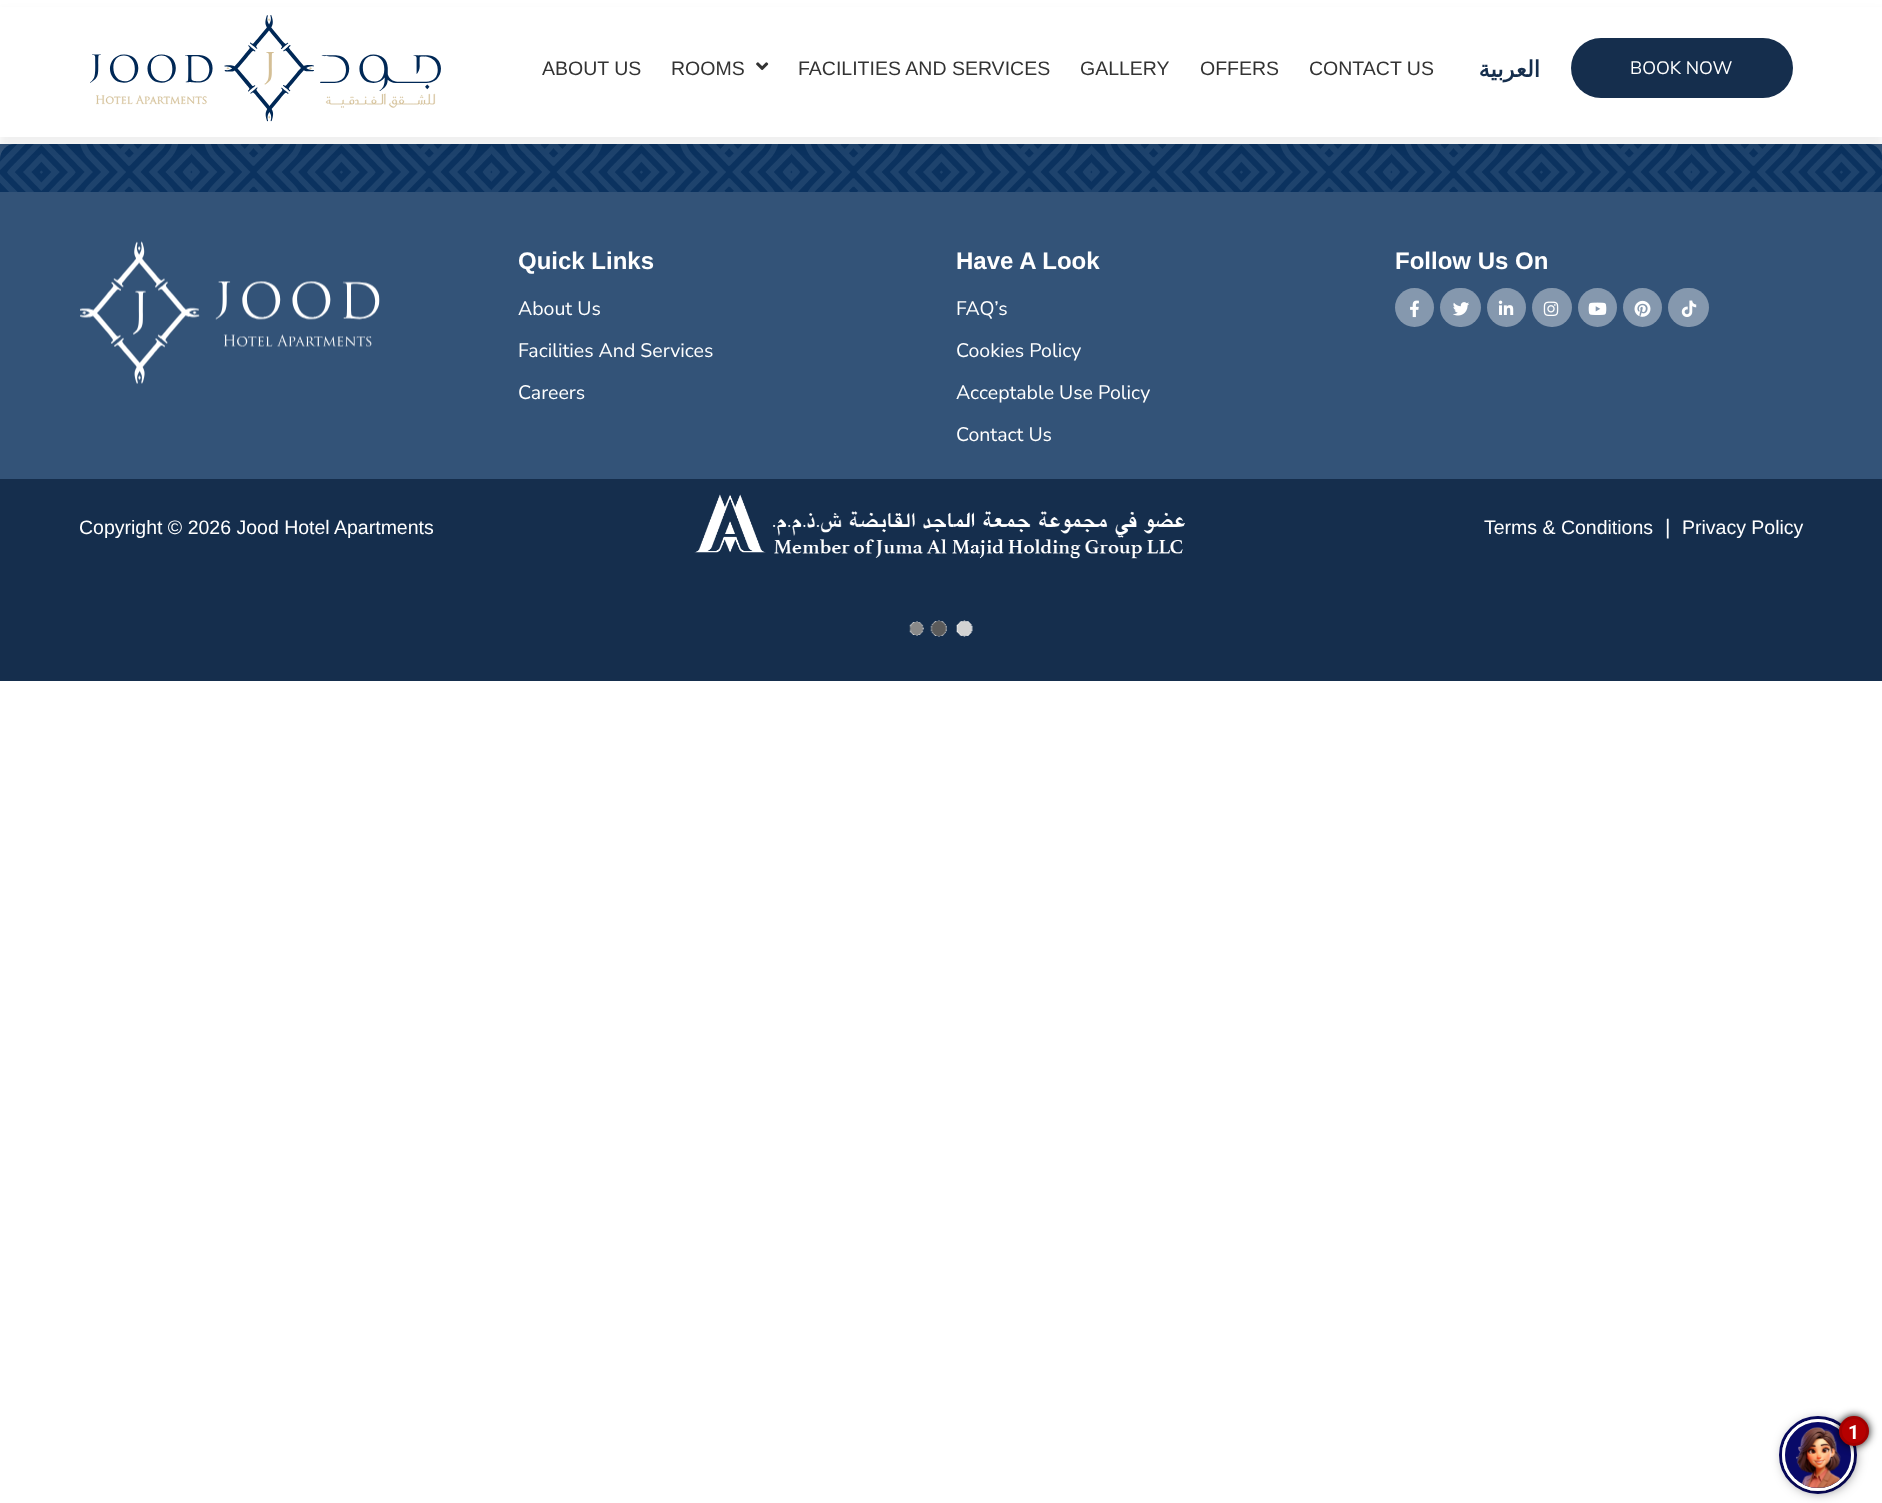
(async () => {
    const canvas = document.querySelector("canvas");
    canvas.width = 1882;
    canvas.height = 1503;
    const context = canvas.getContext("2d");
    context.miterLimit = 4;
    context.fontKerning = "normal";
    function write(s, x, y, font, color) {
        context.font = font;
        context.fillStyle = color;
        context.fillText(s, x, y);
    }
    function block(x, y, w, h, color) {
        context.fillStyle = color;
        context.fillRect(x, y, w, h);
    }
    function card(x, y, w, h, r, color) {
        context.fillStyle = color;
        context.beginPath();
        context.roundRect(x, y, w, h, r);
        context.fill();
    }
    async function photo(src, x, y, w, h) {
        const img = new Image();
        img.src = src;
        await img.decode();
        context.drawImage(img, x, y, w, h);
    }

    block(0, 0, 1882, 1503, "rgb(255, 255, 255)");
    block(0, 144, 1882, 335, "rgb(51, 83, 120)");
    await photo("media/3.png", 0, 144, 1882, 48);
    context.fillStyle = "rgba(0, 0, 0, 0.06)";
    context.filter = "blur(4px)";
    context.beginPath();
    context.rect(0, 11, 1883, 136);
    context.fill();
    context.filter = "none";
    block(0, 7, 1882, 130, "rgb(255, 255, 255)");
    await photo("media/1.png", 90, 15, 351, 107);
    write("ABOUT US", 542, 75, "19.5px Liberation Sans", "rgb(51, 51, 51)");
    write("ROOMS", 671, 75, "19.5px Liberation Sans", "rgb(51, 51, 51)");
    await photo("media/2.png", 756, 62, 13, 9);
    write("FACILITIES AND SERVICES", 798, 75, "19.5px Liberation Sans", "rgb(51, 51, 51)");
    write("GALLERY", 1080, 75, "19.5px Liberation Sans", "rgb(51, 51, 51)");
    write("OFFERS", 1200, 75, "19.5px Liberation Sans", "rgb(51, 51, 51)");
    write("CONTACT US", 1309, 75, "19.5px Liberation Sans", "rgb(51, 51, 51)");
    context.direction = "rtl";
    write("العربية", 1540, 77, "bold 22.5px DejaVu Sans", "rgb(21, 46, 77)");
    card(1571, 38, 222, 60, 30, "rgb(21, 46, 77)");
    context.direction = "ltr";
    write("BOOK NOW", 1630, 74, "18px Nunito Sans", "rgb(255, 255, 255)");
    await photo("media/4.png", 80, 241, 300, 143);
    write("Quick Links", 518, 269, "bold 24px Liberation Sans", "rgb(255, 255, 255)");
    write("About Us", 518, 315, "19.5px Nunito Sans", "rgb(255, 255, 255)");
    write("Facilities And Services", 518, 357, "19.5px Nunito Sans", "rgb(255, 255, 255)");
    write("Careers", 518, 399, "19.5px Nunito Sans", "rgb(255, 255, 255)");
    write("Have A Look", 956, 269, "bold 24px Liberation Sans", "rgb(255, 255, 255)");
    write("FAQ’s", 956, 315, "19.5px Nunito Sans", "rgb(255, 255, 255)");
    write("Cookies Policy", 956, 357, "19.5px Nunito Sans", "rgb(255, 255, 255)");
    write("Acceptable Use Policy", 956, 399, "19.5px Nunito Sans", "rgb(255, 255, 255)");
    write("Contact Us", 956, 441, "19.5px Nunito Sans", "rgb(255, 255, 255)");
    write("Follow Us On", 1395, 269, "bold 24px Liberation Sans", "rgb(255, 255, 255)");
    context.fillStyle = "rgb(133, 152, 174)";
    context.beginPath();
    context.arc(1414.5, 307.5, 19.5, 0, Math.PI * 2);
    context.fill();
    await photo("media/5.png", 1410, 300, 9, 18);
    card(1440, 288, 41, 39, 19.5, "rgb(133, 152, 174)");
    await photo("media/6.png", 1453, 302, 16, 14);
    context.beginPath();
    context.arc(1506.5, 307.5, 19.5, 0, Math.PI * 2);
    context.fill();
    await photo("media/7.png", 1498, 300, 16, 15);
    card(1532, 288, 40, 39, 19.5, "rgb(133, 152, 174)");
    await photo("media/8.png", 1543, 301, 16, 15);
    context.beginPath();
    context.arc(1597.5, 307.5, 19.5, 0, Math.PI * 2);
    context.fill();
    await photo("media/9.png", 1588, 302, 19, 13);
    context.beginPath();
    context.arc(1642.5, 307.5, 19.5, 0, Math.PI * 2);
    context.fill();
    await photo("media/10.png", 1634, 300, 17, 17);
    card(1668, 288, 41, 39, 19.5, "rgb(133, 152, 174)");
    await photo("media/11.png", 1681, 300, 16, 17);
    block(0, 479, 1882, 202, "rgb(21, 46, 77)");
    write("Copyright © 2026 Jood Hotel Apartments", 79, 534, "19.5px Liberation Sans", "rgb(255, 255, 255)");
    await photo("media/12.png", 694, 494, 491, 65);
    write("Terms & Conditions", 1484, 534, "19.5px Liberation Sans", "rgb(255, 255, 255)");
    write("|", 1665, 534, "21px Liberation Sans", "rgb(255, 255, 255)");
    write("Privacy Policy", 1682, 534, "19.5px Liberation Sans", "rgb(255, 255, 255)");
    await photo("media/13.png", 909, 620, 64, 17);
    context.beginPath();
    context.arc(1818, 1455, 37.5, 0, Math.PI * 2);
    context.strokeStyle = "rgb(9, 10, 104)";
    context.lineWidth = 3;
    context.stroke();
    context.fillStyle = "rgb(0, 0, 0)";
    context.filter = "blur(7.5px)";
    context.beginPath();
    context.roundRect(1788, 1425, 63, 63, 31.5);
    context.fill();
    context.filter = "none";
    context.beginPath();
    context.arc(1818, 1455, 34.5, 0, Math.PI * 2);
    context.strokeStyle = "rgb(255, 255, 255)";
    context.stroke();
    context.fillStyle = "rgb(9, 10, 104)";
    context.beginPath();
    context.arc(1818, 1455, 33, 0, Math.PI * 2);
    context.fill();
    await photo("media/14.png", 1795, 1427, 46, 61);
    context.fillStyle = "rgb(0, 0, 0)";
    context.filter = "blur(4px)";
    context.beginPath();
    context.roundRect(1839, 1416, 30, 30, 15);
    context.fill();
    context.filter = "none";
    context.fillStyle = "rgb(182, 0, 0)";
    context.beginPath();
    context.arc(1854, 1431, 13.5, 0, Math.PI * 2);
    context.fill();
    context.strokeStyle = "rgb(163, 0, 0)";
    context.stroke();
    write("1", 1848, 1439, "bold 19.5px Roboto", "rgb(255, 255, 255)");
})();
